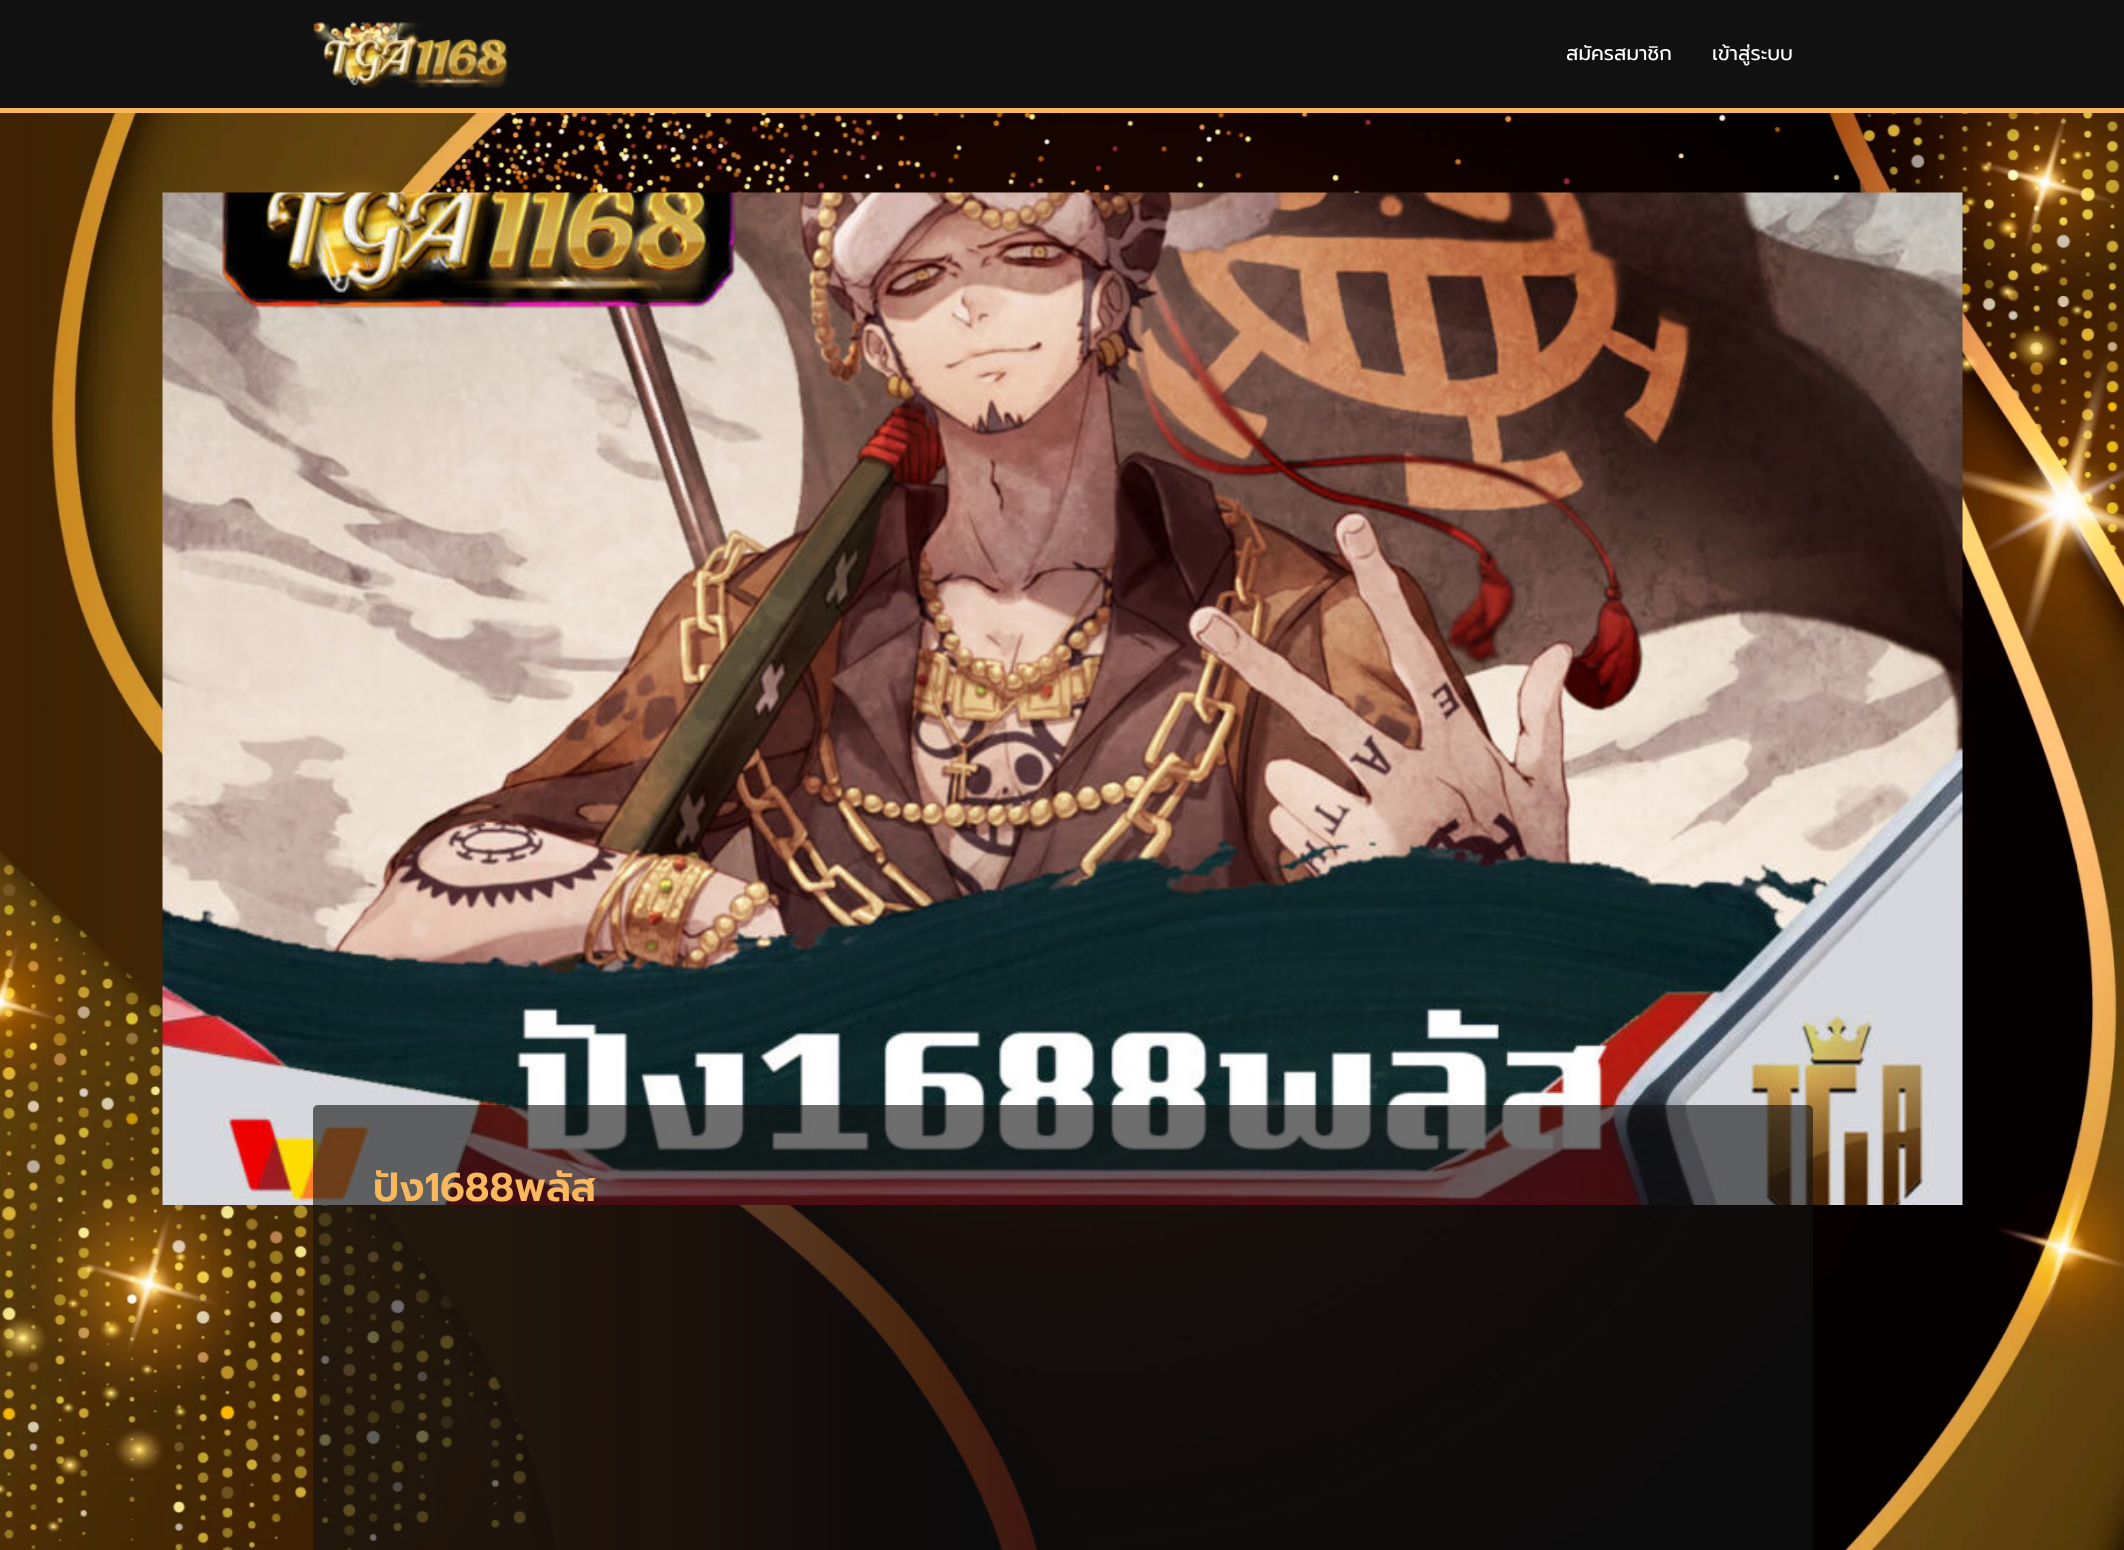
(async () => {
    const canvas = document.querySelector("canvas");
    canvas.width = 2124;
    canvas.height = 1550;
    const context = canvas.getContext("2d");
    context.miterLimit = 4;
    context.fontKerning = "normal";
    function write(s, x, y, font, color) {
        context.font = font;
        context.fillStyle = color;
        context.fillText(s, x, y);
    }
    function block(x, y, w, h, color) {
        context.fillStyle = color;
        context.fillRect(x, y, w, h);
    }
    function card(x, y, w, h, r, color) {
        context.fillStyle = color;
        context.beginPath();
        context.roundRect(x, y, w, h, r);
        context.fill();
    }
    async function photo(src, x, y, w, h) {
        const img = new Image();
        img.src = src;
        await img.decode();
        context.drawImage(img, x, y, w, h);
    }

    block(0, 0, 2124, 1550, "rgb(255, 255, 255)");
    await photo("media/1.png", 0, 113, 2124, 1437);
    block(0, 0, 2124, 108, "rgb(17, 17, 17)");
    block(0, 108, 2124, 5, "rgb(250, 184, 92)");
    await photo("media/2.png", 313, 22, 196, 66);
    write("สมัครสมาชิก", 1566, 60, "20px Prompt", "rgb(255, 255, 255)");
    write("เข้าสู่ระบบ", 1712, 60, "20px Prompt", "rgb(255, 255, 255)");
    await photo("media/3.png", 162, 192, 1801, 1013);
    card(313, 1105, 1500, 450, 5, "rgba(18, 18, 18, 0.61)");
    write("ปัง1688พลัส", 373, 1201, "600 40px Prompt", "rgb(250, 184, 92)");
})();
